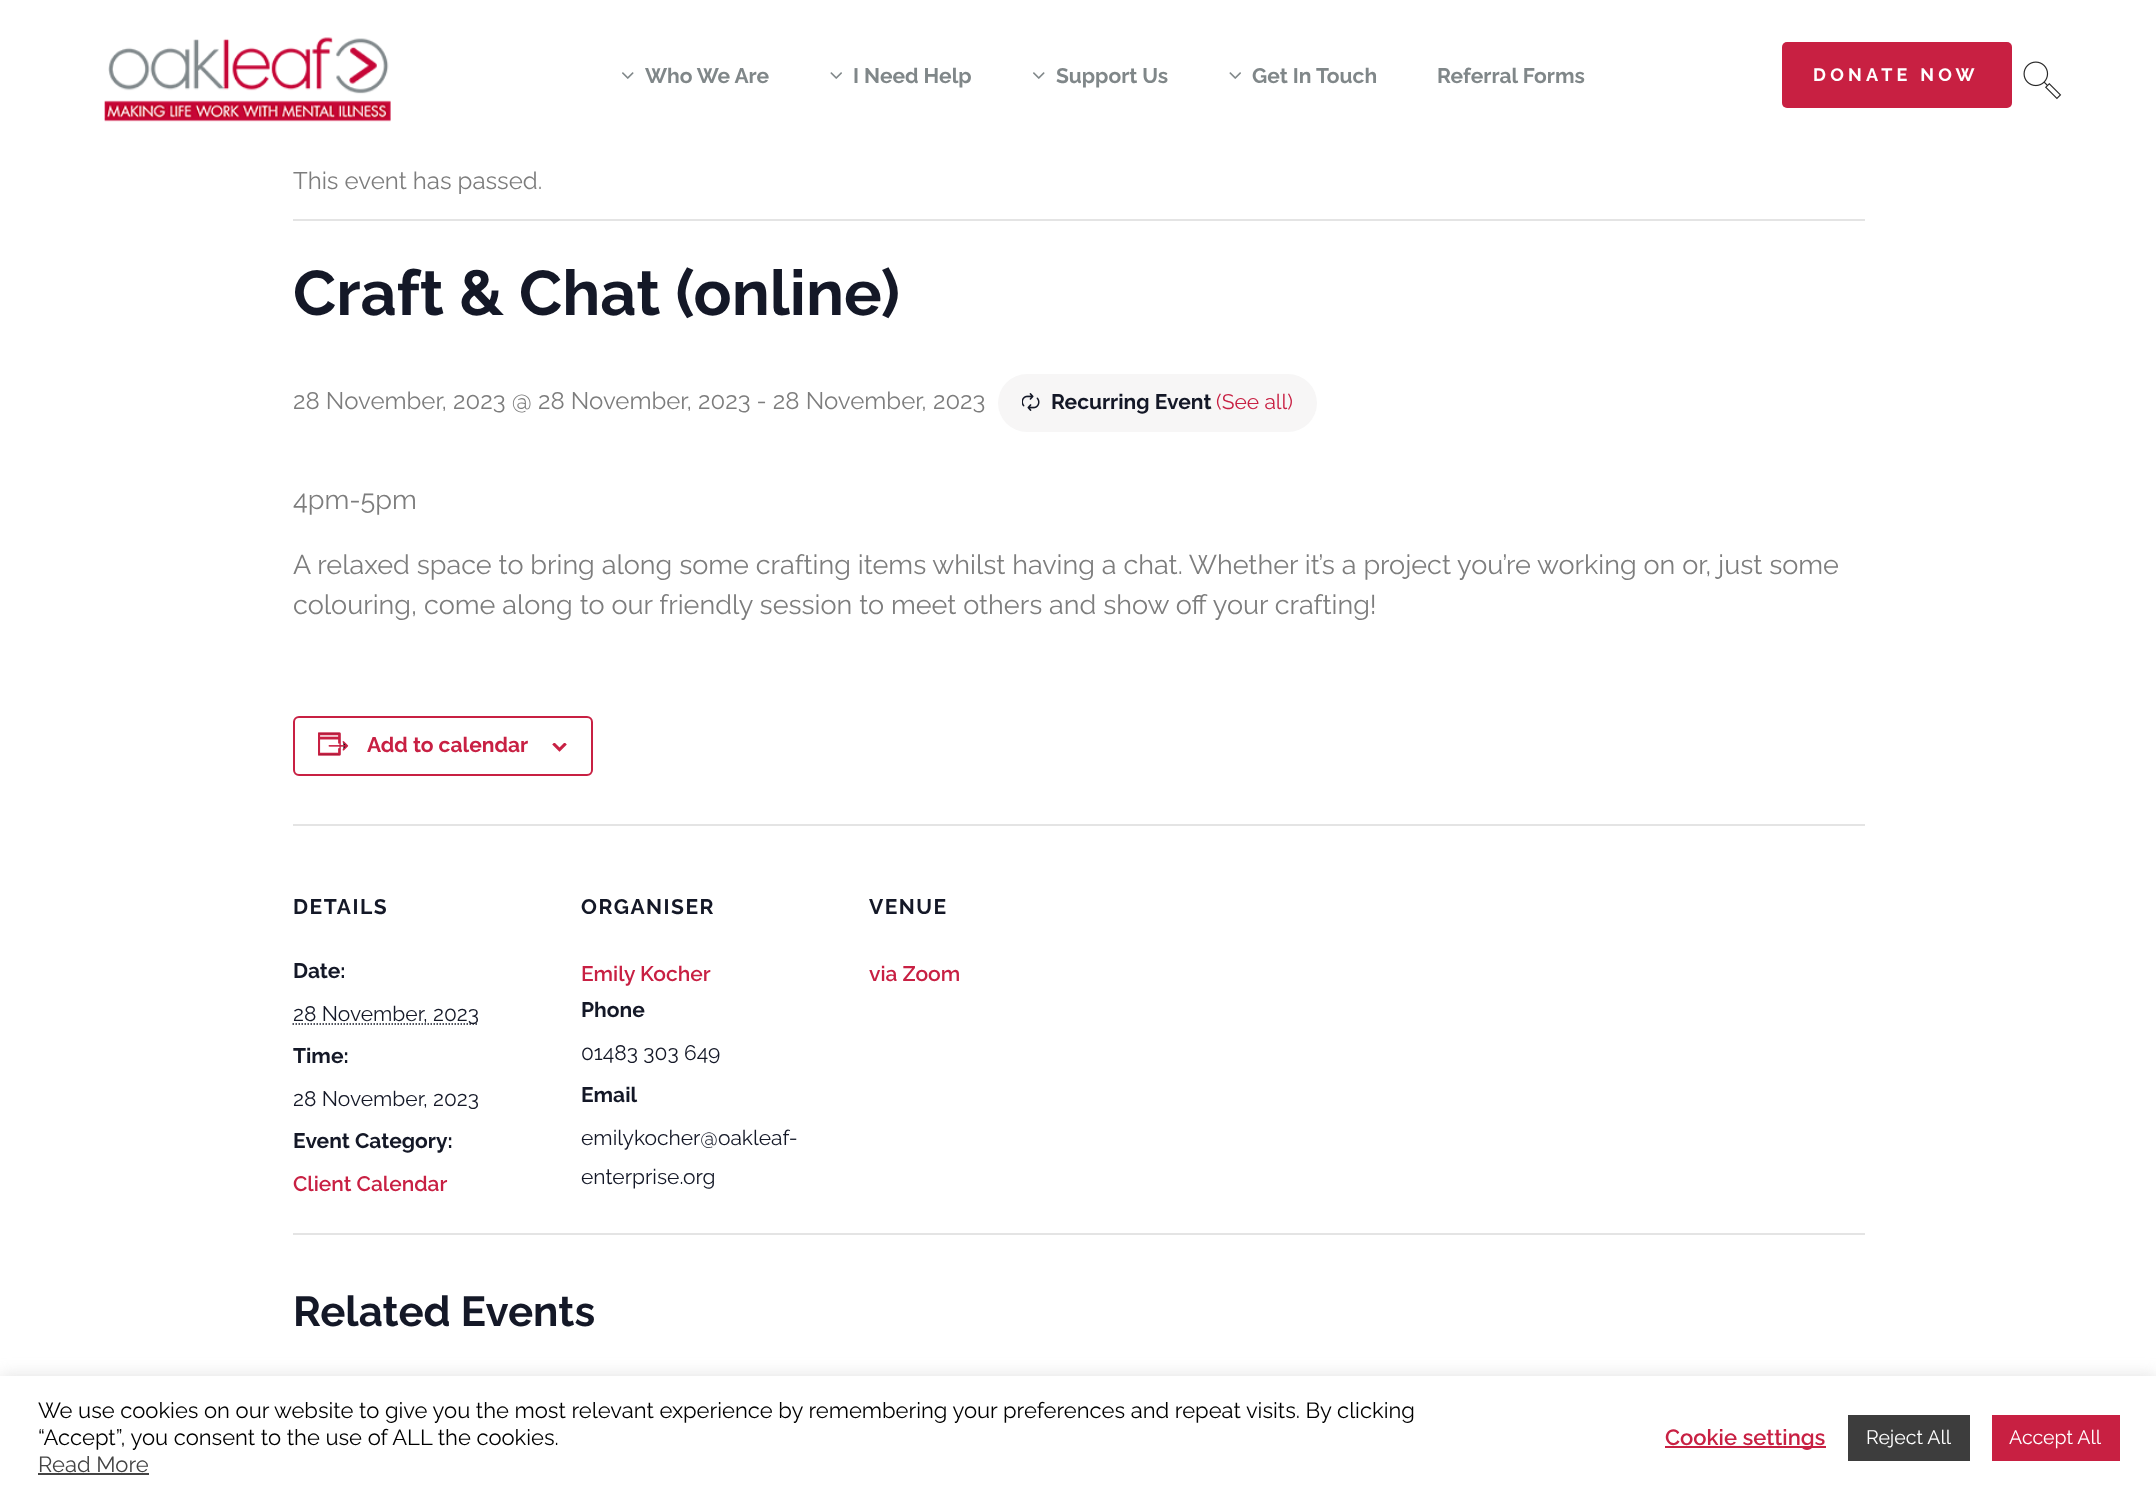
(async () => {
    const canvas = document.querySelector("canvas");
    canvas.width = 2156;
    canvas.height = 1498;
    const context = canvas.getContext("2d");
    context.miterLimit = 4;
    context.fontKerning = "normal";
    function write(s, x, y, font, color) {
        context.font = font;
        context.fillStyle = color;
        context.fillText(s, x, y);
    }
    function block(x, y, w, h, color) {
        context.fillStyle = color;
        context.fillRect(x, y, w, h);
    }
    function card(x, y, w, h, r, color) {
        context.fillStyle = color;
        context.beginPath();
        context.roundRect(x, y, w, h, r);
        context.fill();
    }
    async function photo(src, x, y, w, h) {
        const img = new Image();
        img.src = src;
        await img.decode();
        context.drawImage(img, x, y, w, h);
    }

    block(0, 0, 2156, 1498, "rgb(255, 255, 255)");
    await photo("media/1.png", 104, 37, 287, 85);
    await photo("media/2.png", 622, 72, 12, 7);
    write("Who We Are", 645, 83, "bold 21px Raleway", "rgb(128, 135, 137)");
    await photo("media/3.png", 830, 72, 12, 7);
    write("I Need Help", 853, 83, "bold 21px Raleway", "rgb(128, 135, 137)");
    await photo("media/2.png", 1033, 72, 12, 7);
    write("Support Us", 1056, 83, "bold 21px Raleway", "rgb(128, 135, 137)");
    await photo("media/3.png", 1229, 72, 12, 7);
    write("Get In Touch", 1252, 83, "bold 21px Raleway", "rgb(128, 135, 137)");
    write("Referral Forms", 1437, 83, "bold 21px Raleway", "rgb(128, 135, 137)");
    card(1782, 42, 230, 66, 5, "rgb(200, 32, 66)");
    context.letterSpacing = "4.25px";
    write("DONATE NOW", 1813, 81, "bold 18px Raleway", "rgb(255, 255, 255)");
    await photo("media/4.png", 2023, 61, 39, 39);
    block(293, 219, 1572, 2, "rgb(228, 228, 228)");
    context.letterSpacing = "0px";
    write("This event has passed.", 293, 189, "24px Raleway", "rgb(125, 125, 125)");
    write("Craft & Chat (online)", 293, 315, "bold 63px Raleway", "rgb(20, 24, 39)");
    write("28 November, 2023 @ 28 November, 2023 - 28 November, 2023", 293, 409, "24px Raleway", "rgb(125, 125, 125)");
    card(998, 374, 319, 58, 29, "rgb(247, 246, 246)");
    await photo("media/5.png", 1022, 393, 18, 18);
    write("Recurring Event", 1051, 409, "bold 21px Raleway", "rgb(20, 24, 39)");
    write("(See all)", 1216, 409, "21px Raleway", "rgb(200, 32, 67)");
    write("4pm-5pm", 293, 509, "27px Raleway", "rgb(125, 125, 125)");
    write("A relaxed space to bring along some crafting items whilst having a chat. Whether it’s a project you’re working on or, just some", 293, 574, "27px Raleway", "rgb(125, 125, 125)");
    write("colouring, come along to our friendly session to meet others and show off your crafting!", 293, 614, "27px Raleway", "rgb(125, 125, 125)");
    context.beginPath();
    context.roundRect(294, 717, 298, 58, 5);
    context.strokeStyle = "rgb(200, 32, 67)";
    context.lineWidth = 2;
    context.stroke();
    await photo("media/6.png", 318, 732, 31, 24);
    write("Add to calendar", 367, 752, "bold 21px Raleway", "rgb(200, 32, 67)");
    await photo("media/7.png", 552, 743, 15, 9);
    block(293, 824, 1572, 2, "rgb(228, 228, 228)");
    context.letterSpacing = "1.5px";
    write("DETAILS", 293, 914, "bold 21px Raleway", "rgb(20, 24, 39)");
    context.letterSpacing = "0px";
    write("Date:", 293, 978, "bold 21px Raleway", "rgb(20, 24, 39)");
    context.beginPath();
    context.moveTo(292.5, 1024);
    context.lineTo(478.5, 1024);
    context.strokeStyle = "rgb(20, 24, 39)";
    context.lineWidth = 1.5;
    context.setLineDash([1.5, 1.5]);
    context.stroke();
    write("28 November, 2023", 293, 1021, "21px Raleway", "rgb(20, 24, 39)");
    context.save();
    context.beginPath();
    context.rect(293, 480, 1572, 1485);
    context.clip();
    write("Time:", 293, 1063, "bold 21px Raleway", "rgb(20, 24, 39)");
    context.restore();
    write("28 November, 2023", 293, 1106, "21px Raleway", "rgb(20, 24, 39)");
    write("Event Category:", 293, 1148, "bold 21px Raleway", "rgb(20, 24, 39)");
    write("Client Calendar", 293, 1191, "600 21px Raleway", "rgb(200, 32, 67)");
    context.letterSpacing = "1.5px";
    write("ORGANISER", 581, 914, "bold 21px Raleway", "rgb(20, 24, 39)");
    context.letterSpacing = "0px";
    write("Emily Kocher", 581, 981, "600 21px Raleway", "rgb(200, 32, 67)");
    write("Phone", 581, 1017, "bold 21px Raleway", "rgb(20, 24, 39)");
    write("01483 303 649", 581, 1060, "21px Raleway", "rgb(20, 24, 39)");
    write("Email", 581, 1102, "bold 21px Raleway", "rgb(20, 24, 39)");
    write("emilykocher@oakleaf-", 581, 1145, "21px Raleway", "rgb(20, 24, 39)");
    write("enterprise.org", 581, 1184, "21px Raleway", "rgb(20, 24, 39)");
    context.letterSpacing = "1.5px";
    write("VENUE", 869, 914, "bold 21px Raleway", "rgb(20, 24, 39)");
    context.letterSpacing = "0px";
    write("via Zoom", 869, 981, "600 21px Raleway", "rgb(200, 32, 67)");
    block(293, 1233, 1572, 2, "rgb(228, 228, 228)");
    write("Related Events", 293, 1326, "bold 42px Raleway", "rgb(20, 24, 39)");
    context.fillStyle = "rgba(172, 171, 171, 0.3)";
    context.filter = "blur(7.5px)";
    context.beginPath();
    context.rect(0, 1374, 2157, 123);
    context.fill();
    context.filter = "none";
    block(0, 1376, 2156, 122, "rgb(255, 255, 255)");
    write("We use cookies on our website to give you the most relevant experience by remembering your preferences and repeat visits. By clicking", 38, 1418, "22px Raleway", "rgb(0, 0, 0)");
    write("“Accept”, you consent to the use of ALL the cookies.", 38, 1445, "22px Raleway", "rgb(0, 0, 0)");
    write("Read More", 38, 1472, "22px Raleway", "rgb(68, 68, 68)");
    block(38, 1473, 111, 2, "rgb(68, 68, 68)");
    block(1665, 1446, 161, 2, "rgb(200, 32, 66)");
    write("Cookie settings", 1665, 1445, "600 22px Raleway", "rgb(200, 32, 67)");
    block(1848, 1415, 122, 46, "rgb(61, 61, 61)");
    write("Reject All", 1866, 1444, "19.5px Raleway", "rgb(255, 255, 255)");
    block(1992, 1415, 128, 46, "rgb(200, 32, 66)");
    write("Accept All", 2009, 1444, "19.5px Raleway", "rgb(255, 255, 255)");
})();
